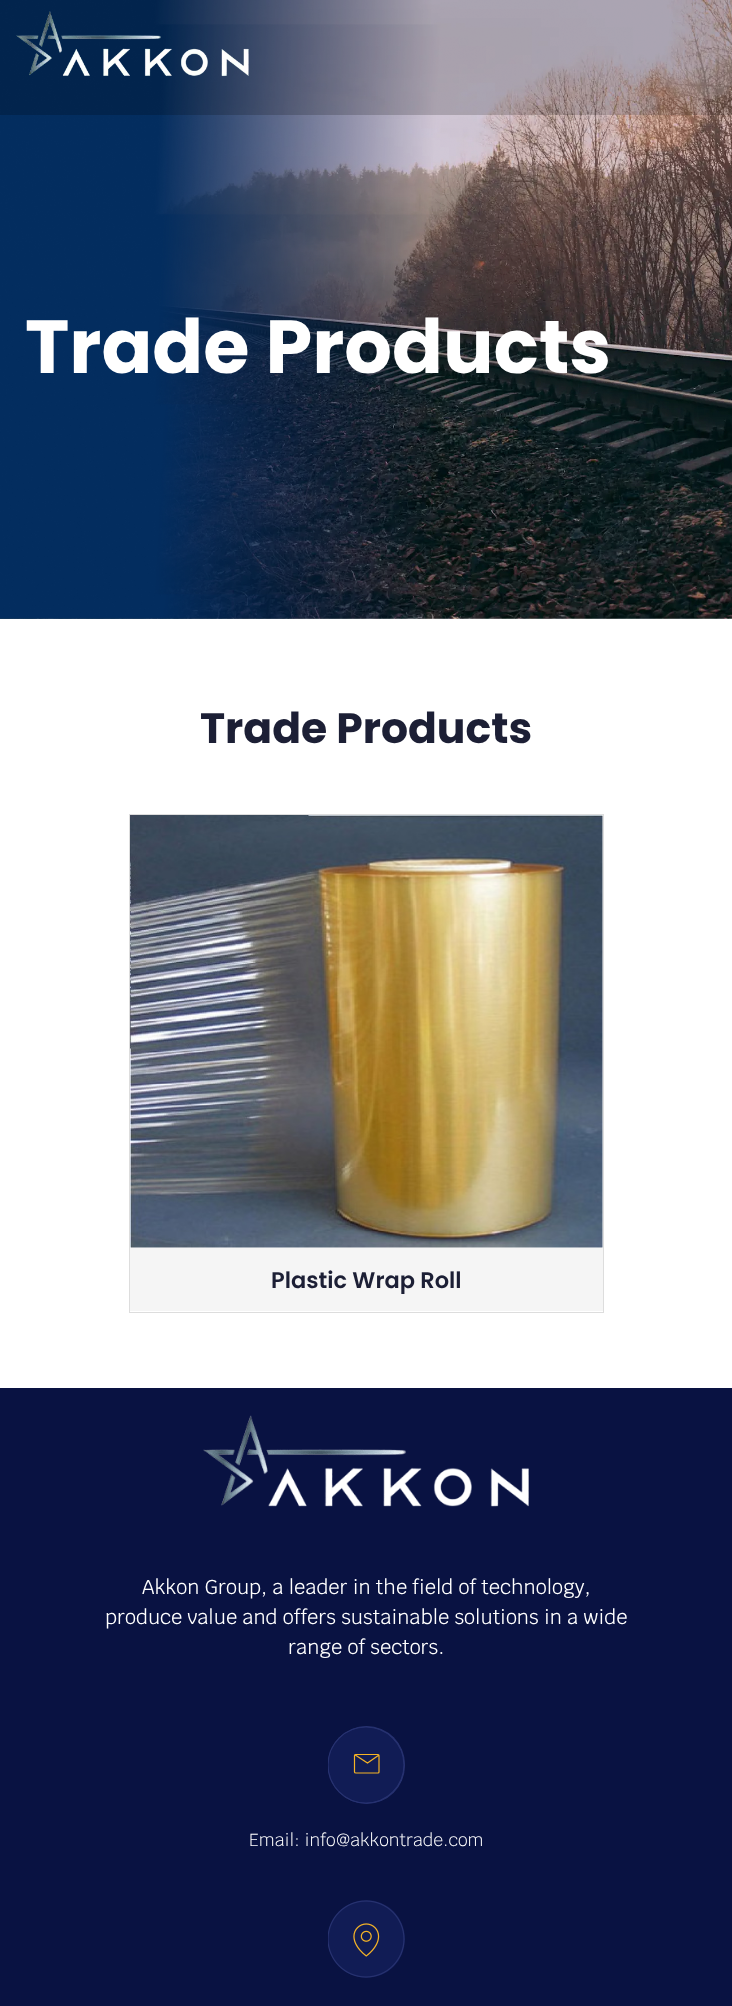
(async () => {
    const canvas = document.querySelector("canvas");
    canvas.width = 732;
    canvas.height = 2006;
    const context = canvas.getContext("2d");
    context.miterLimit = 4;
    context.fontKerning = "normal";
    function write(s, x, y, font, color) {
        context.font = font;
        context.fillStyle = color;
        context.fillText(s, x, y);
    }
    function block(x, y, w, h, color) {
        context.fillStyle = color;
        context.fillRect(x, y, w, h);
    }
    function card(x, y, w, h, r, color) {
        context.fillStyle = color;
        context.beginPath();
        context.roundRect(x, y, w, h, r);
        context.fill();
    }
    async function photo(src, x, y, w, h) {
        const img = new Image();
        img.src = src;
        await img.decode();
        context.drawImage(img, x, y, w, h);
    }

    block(0, 0, 732, 2006, "rgb(255, 255, 255)");
    await photo("media/2.png", 0, 0, 732, 619);
    await photo("media/3.png", 0, 0, 732, 619);
    block(0, 0, 732, 115, "rgba(0, 0, 0, 0.18)");
    await photo("media/1.png", 16, 11, 233, 66);
    write("Trade Products", 25, 373, "bold 75px Poppins", "rgb(255, 255, 255)");
    write("Trade Products", 200, 743, "bold 42.5px Poppins", "rgb(28, 31, 53)");
    context.strokeStyle = "rgb(221, 221, 221)";
    context.strokeRect(129.5, 814.5, 474, 498);
    await photo("media/4.png", 130, 815, 473, 433);
    block(130, 1248, 473, 63, "rgb(245, 245, 245)");
    write("Plastic Wrap Roll", 271, 1288, "600 22.5px Poppins", "rgb(28, 31, 53)");
    block(0, 1388, 732, 618, "rgb(9, 18, 66)");
    await photo("media/5.png", 203, 1415, 326, 92);
    write("Akkon Group, a leader in the field of technology,", 142, 1594, "20px Krub", "rgb(255, 255, 255)");
    write("produce value and offers sustainable solutions in a wide", 105, 1624, "20px Krub", "rgb(255, 255, 255)");
    write("range of sectors.", 288, 1654, "20px Krub", "rgb(255, 255, 255)");
    card(328, 1726, 77, 78, 38.5, "rgb(39, 50, 112)");
    context.fillStyle = "rgb(17, 28, 85)";
    context.beginPath();
    context.arc(366, 1765, 38, 0, Math.PI * 2);
    context.fill();
    context.save();
    context.beginPath();
    context.rect(328, 1726, 77, 78);
    context.clip();
    context.beginPath();
    context.arc(366, 1765, 38, 0, Math.PI * 2);
    context.strokeStyle = "rgb(39, 50, 112)";
    context.lineWidth = 1.2;
    context.stroke();
    context.restore();
    context.beginPath();
    context.moveTo(378, 1754.5);
    context.lineTo(356, 1754.5);
    context.bezierCurveTo(355, 1754.5, 354.5, 1755, 354.5, 1755.5);
    context.lineTo(354.5, 1772);
    context.bezierCurveTo(354.5, 1772.5, 355, 1773, 356, 1773);
    context.lineTo(378, 1773);
    context.bezierCurveTo(378.5, 1773, 379, 1772.5, 379, 1772);
    context.lineTo(379, 1755.5);
    context.bezierCurveTo(379, 1755, 378.5, 1754.5, 378, 1754.5);
    context.closePath();
    context.moveTo(354.5, 1754.5);
    context.lineTo(367.5, 1763);
    context.lineTo(379, 1755);
    context.strokeStyle = "rgb(246, 180, 38)";
    context.lineWidth = 1.2;
    context.stroke();
    write("Email: info@akkontrade.com", 249, 1846, "300 17.5px Krub", "rgb(255, 255, 255)");
    card(328, 1900, 77, 78, 38.5, "rgb(17, 28, 85)");
    await photo("media/6.png", 328, 1900, 77, 78);
})();
